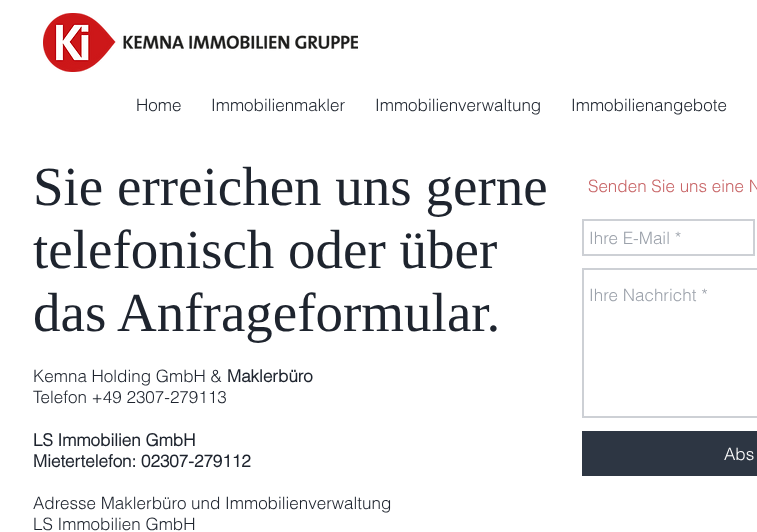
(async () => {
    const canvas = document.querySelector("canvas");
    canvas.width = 757;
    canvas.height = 532;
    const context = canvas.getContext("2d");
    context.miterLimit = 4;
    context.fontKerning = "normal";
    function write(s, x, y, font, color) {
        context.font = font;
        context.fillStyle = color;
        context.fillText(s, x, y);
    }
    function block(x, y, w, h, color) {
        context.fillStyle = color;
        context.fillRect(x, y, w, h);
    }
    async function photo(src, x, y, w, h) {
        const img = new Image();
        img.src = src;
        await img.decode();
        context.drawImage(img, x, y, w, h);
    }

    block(0, 0, 757, 532, "rgb(255, 255, 255)");
    await photo("media/1.png", 43, 13, 315, 59);
    write("Home", 136, 111, "300 17px helvetica", "rgb(30, 36, 46)");
    write("Immobilienmakler", 211, 111, "300 17px helvetica", "rgb(30, 36, 46)");
    write("Immobilienverwaltung", 375, 111, "300 17px helvetica", "rgb(30, 36, 46)");
    write("Immobilienangebote", 571, 111, "300 17px helvetica", "rgb(30, 36, 46)");
    write("Sie erreichen uns gerne", 33, 205, "55px Liberation Serif", "rgb(30, 36, 46)");
    write("telefonisch oder über", 33, 268, "55px Liberation Serif", "rgb(30, 36, 46)");
    write("das Anfrageformular.", 33, 331, "55px Liberation Serif", "rgb(30, 36, 46)");
    write("Senden Sie uns eine N", 588, 192, "300 17px helvetica", "rgb(200, 101, 103)");
    write("Kemna Holding GmbH &", 33, 382, "300 17px helvetica", "rgb(30, 36, 46)");
    write("Maklerbüro", 227, 382, "bold 17px helvetica", "rgb(30, 36, 46)");
    write("Telefon +49 2307-279113", 33, 403, "300 17px helvetica", "rgb(30, 36, 46)");
    write("LS Immobilien GmbH", 33, 446, "bold 17px helvetica", "rgb(30, 36, 46)");
    write("Mietertelefon: 02307-279112", 33, 467, "bold 17px helvetica", "rgb(30, 36, 46)");
    write("Adresse Maklerbüro und Immobilienverwaltung", 33, 509, "300 17px helvetica", "rgb(30, 36, 46)");
    write("LS Immobilien GmbH", 33, 530, "300 17px helvetica", "rgb(30, 36, 46)");
    context.strokeStyle = "rgb(205, 208, 213)";
    context.lineWidth = 2;
    context.strokeRect(583, 220, 171, 35);
    write("Ihre E-Mail *", 589, 244, "300 17px helvetica", "rgb(156, 162, 171)");
    context.strokeRect(583, 269, 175, 148);
    write("Ihre Nachricht *", 589, 301, "300 17px helvetica", "rgb(156, 162, 171)");
    block(582, 431, 175, 45, "rgb(45, 54, 67)");
    write("Abs", 724, 460, "300 17px helvetica", "rgb(255, 255, 255)");
})();
